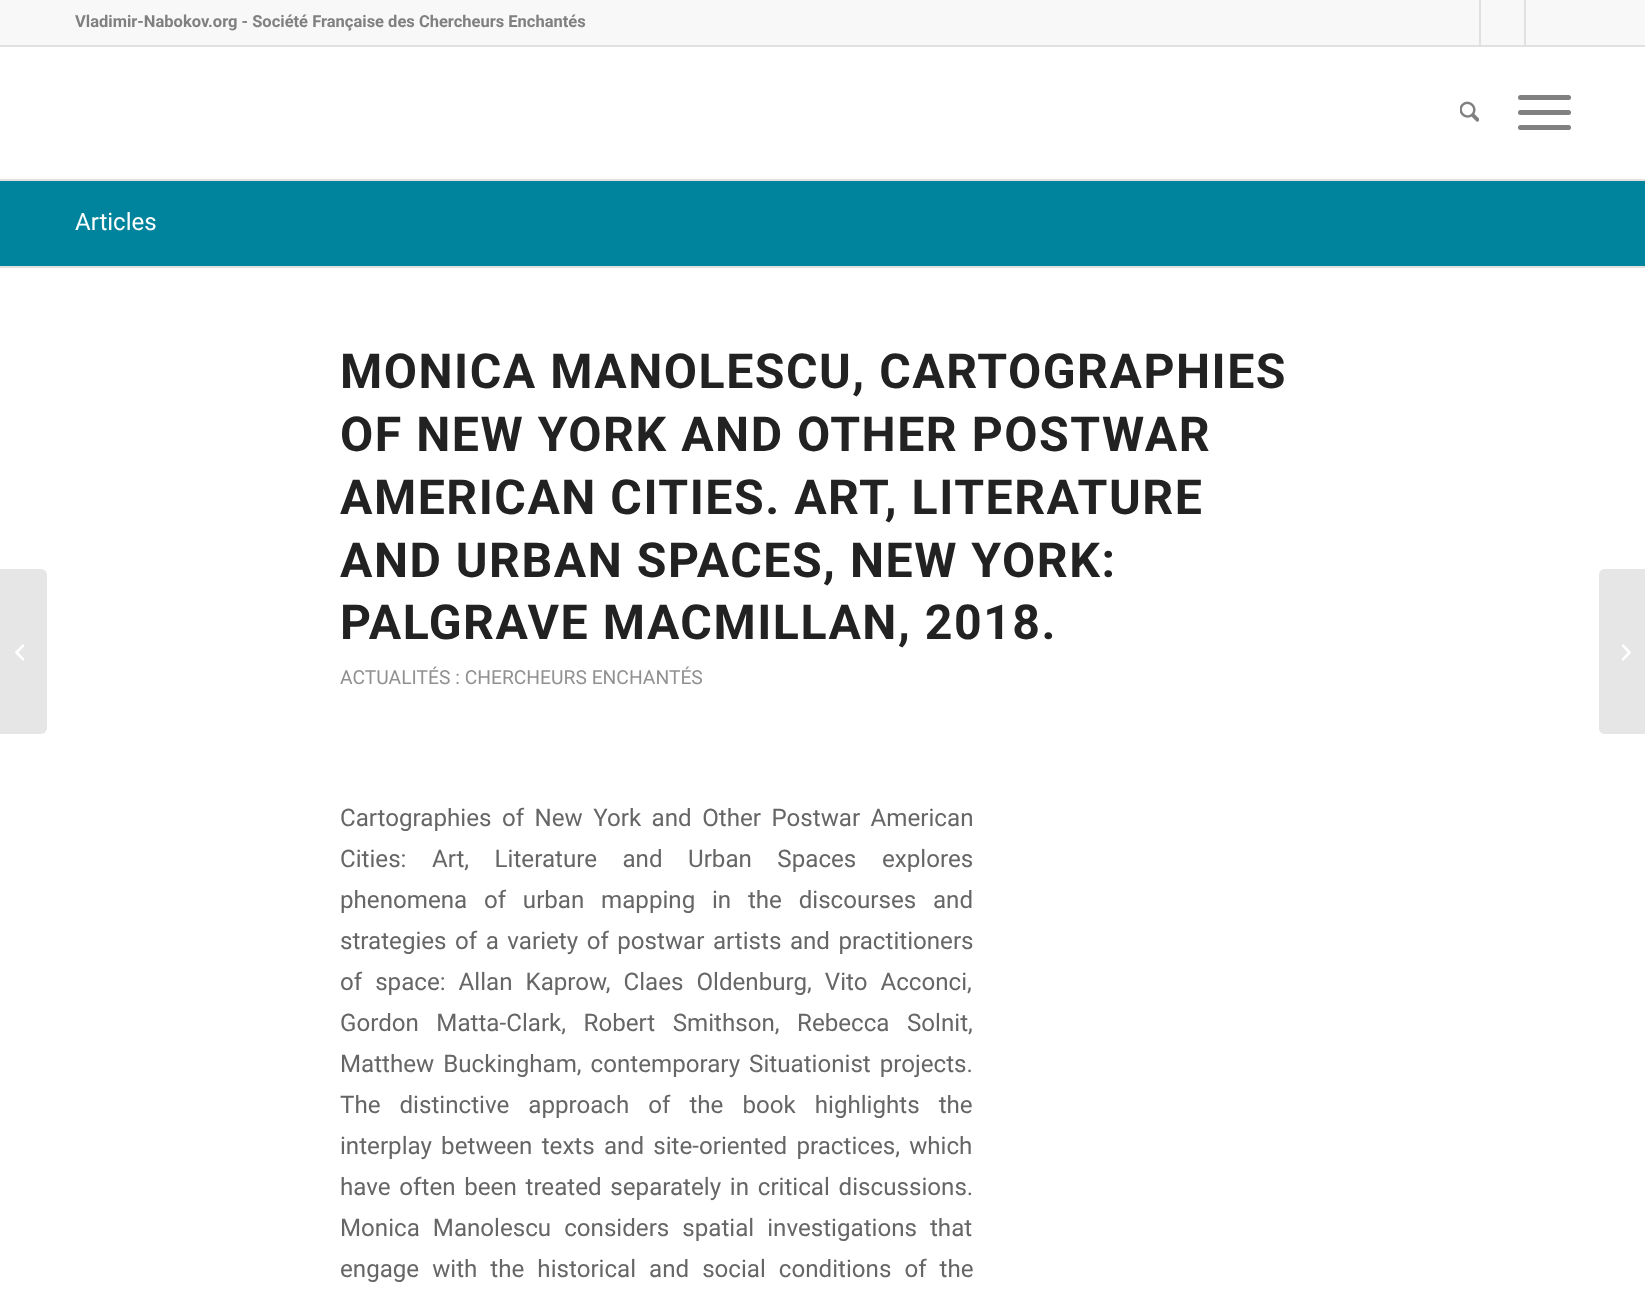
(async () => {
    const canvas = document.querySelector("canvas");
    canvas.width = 1645;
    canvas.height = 1302;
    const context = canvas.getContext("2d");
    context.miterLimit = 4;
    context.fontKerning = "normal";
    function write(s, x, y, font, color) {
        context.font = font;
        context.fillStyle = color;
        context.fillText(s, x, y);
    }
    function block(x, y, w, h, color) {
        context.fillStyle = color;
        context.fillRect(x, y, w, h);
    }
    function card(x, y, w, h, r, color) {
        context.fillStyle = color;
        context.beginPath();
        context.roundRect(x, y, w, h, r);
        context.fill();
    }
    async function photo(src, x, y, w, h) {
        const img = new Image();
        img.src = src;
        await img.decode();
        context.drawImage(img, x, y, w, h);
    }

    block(0, 0, 1645, 1302, "rgb(255, 255, 255)");
    block(0, 0, 1645, 45, "rgb(248, 248, 248)");
    block(0, 45, 1645, 2, "rgb(225, 225, 225)");
    write("Vladimir-Nabokov.org - Société Française des Chercheurs Enchantés", 75, 27, "bold 16.5px Roboto", "rgb(128, 128, 128)");
    block(1479, 0, 2, 45, "rgb(225, 225, 225)");
    block(1524, 0, 2, 45, "rgb(225, 225, 225)");
    block(0, 179, 1645, 2, "rgb(225, 225, 225)");
    await photo("media/1.png", 1460, 101, 19, 21);
    card(1518, 110, 53, 5, 2.5, "rgb(128, 128, 128)");
    card(1518, 95, 53, 5, 2.5, "rgb(128, 128, 128)");
    card(1518, 125, 53, 5, 2.5, "rgb(128, 128, 128)");
    context.fillStyle = "rgb(230, 230, 230)";
    context.beginPath();
    context.roundRect(0, 569, 47, 165, [0, 6, 6, 0]);
    context.fill();
    await photo("media/2.png", 15, 644, 9, 17);
    block(0, 181, 1645, 85, "rgb(0, 131, 157)");
    write("Articles", 75, 230, "24px Roboto", "rgb(255, 255, 255)");
    block(0, 266, 1645, 2, "rgb(225, 225, 225)");
    context.letterSpacing = "1.5px";
    write("MONICA MANOLESCU, CARTOGRAPHIES", 340, 388, "bold 48.25px Roboto", "rgb(34, 34, 34)");
    write("OF NEW YORK AND OTHER POSTWAR", 340, 451, "bold 48.25px Roboto", "rgb(34, 34, 34)");
    write("AMERICAN CITIES. ART, LITERATURE", 340, 514, "bold 48.25px Roboto", "rgb(34, 34, 34)");
    write("AND URBAN SPACES, NEW YORK:", 340, 577, "bold 48.25px Roboto", "rgb(34, 34, 34)");
    write("PALGRAVE MACMILLAN, 2018.", 340, 639, "bold 48.25px Roboto", "rgb(34, 34, 34)");
    context.letterSpacing = "0px";
    write("ACTUALITÉS : CHERCHEURS ENCHANTÉS", 340, 684, "19.3px Roboto", "rgb(145, 145, 145)");
    context.wordSpacing = "4.5px";
    write("Cartographies of New York and Other Postwar American", 340, 826, "24.15px Roboto", "rgb(102, 102, 102)");
    context.wordSpacing = "19.5px";
    write("Cities: Art, Literature and Urban Spaces", 340, 867, "24.15px Roboto", "rgb(102, 102, 102)");
    context.wordSpacing = "0px";
    write("explores", 882, 867, "24.15px Roboto", "rgb(102, 102, 102)");
    context.wordSpacing = "10.75px";
    write("phenomena of urban mapping in the discourses and", 340, 908, "24.15px Roboto", "rgb(102, 102, 102)");
    context.wordSpacing = "2.5px";
    write("strategies of a variety of postwar artists and practitioners", 340, 949, "24.15px Roboto", "rgb(102, 102, 102)");
    context.wordSpacing = "7px";
    write("of space: Allan Kaprow, Claes Oldenburg, Vito Acconci,", 340, 990, "24.15px Roboto", "rgb(102, 102, 102)");
    context.wordSpacing = "11.5px";
    write("Gordon Matta-Clark, Robert Smithson, Rebecca Solnit,", 340, 1031, "24.15px Roboto", "rgb(102, 102, 102)");
    context.wordSpacing = "3px";
    write("Matthew Buckingham, contemporary Situationist projects.", 340, 1072, "24.15px Roboto", "rgb(102, 102, 102)");
    context.wordSpacing = "13px";
    write("The distinctive approach of the book highlights the", 340, 1113, "24.15px Roboto", "rgb(102, 102, 102)");
    context.wordSpacing = "3.25px";
    write("interplay between texts and site-oriented practices, which", 340, 1154, "24.15px Roboto", "rgb(102, 102, 102)");
    context.wordSpacing = "2.75px";
    write("have often been treated separately in critical discussions.", 340, 1195, "24.15px Roboto", "rgb(102, 102, 102)");
    context.wordSpacing = "7px";
    write("Monica Manolescu considers spatial investigations that", 340, 1236, "24.15px Roboto", "rgb(102, 102, 102)");
    write("engage with the historical and social conditions of the", 340, 1277, "24.15px Roboto", "rgb(102, 102, 102)");
    context.fillStyle = "rgb(230, 230, 230)";
    context.beginPath();
    context.moveTo(1605, 569);
    context.lineTo(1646, 569);
    context.lineTo(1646, 734);
    context.lineTo(1605, 734);
    context.bezierCurveTo(1601.5, 734, 1599, 731.5, 1599, 728);
    context.lineTo(1599, 575);
    context.bezierCurveTo(1599, 571.5, 1601.5, 569, 1605, 569);
    context.closePath();
    context.fill();
    await photo("media/3.png", 1622, 644, 9, 17);
})();
